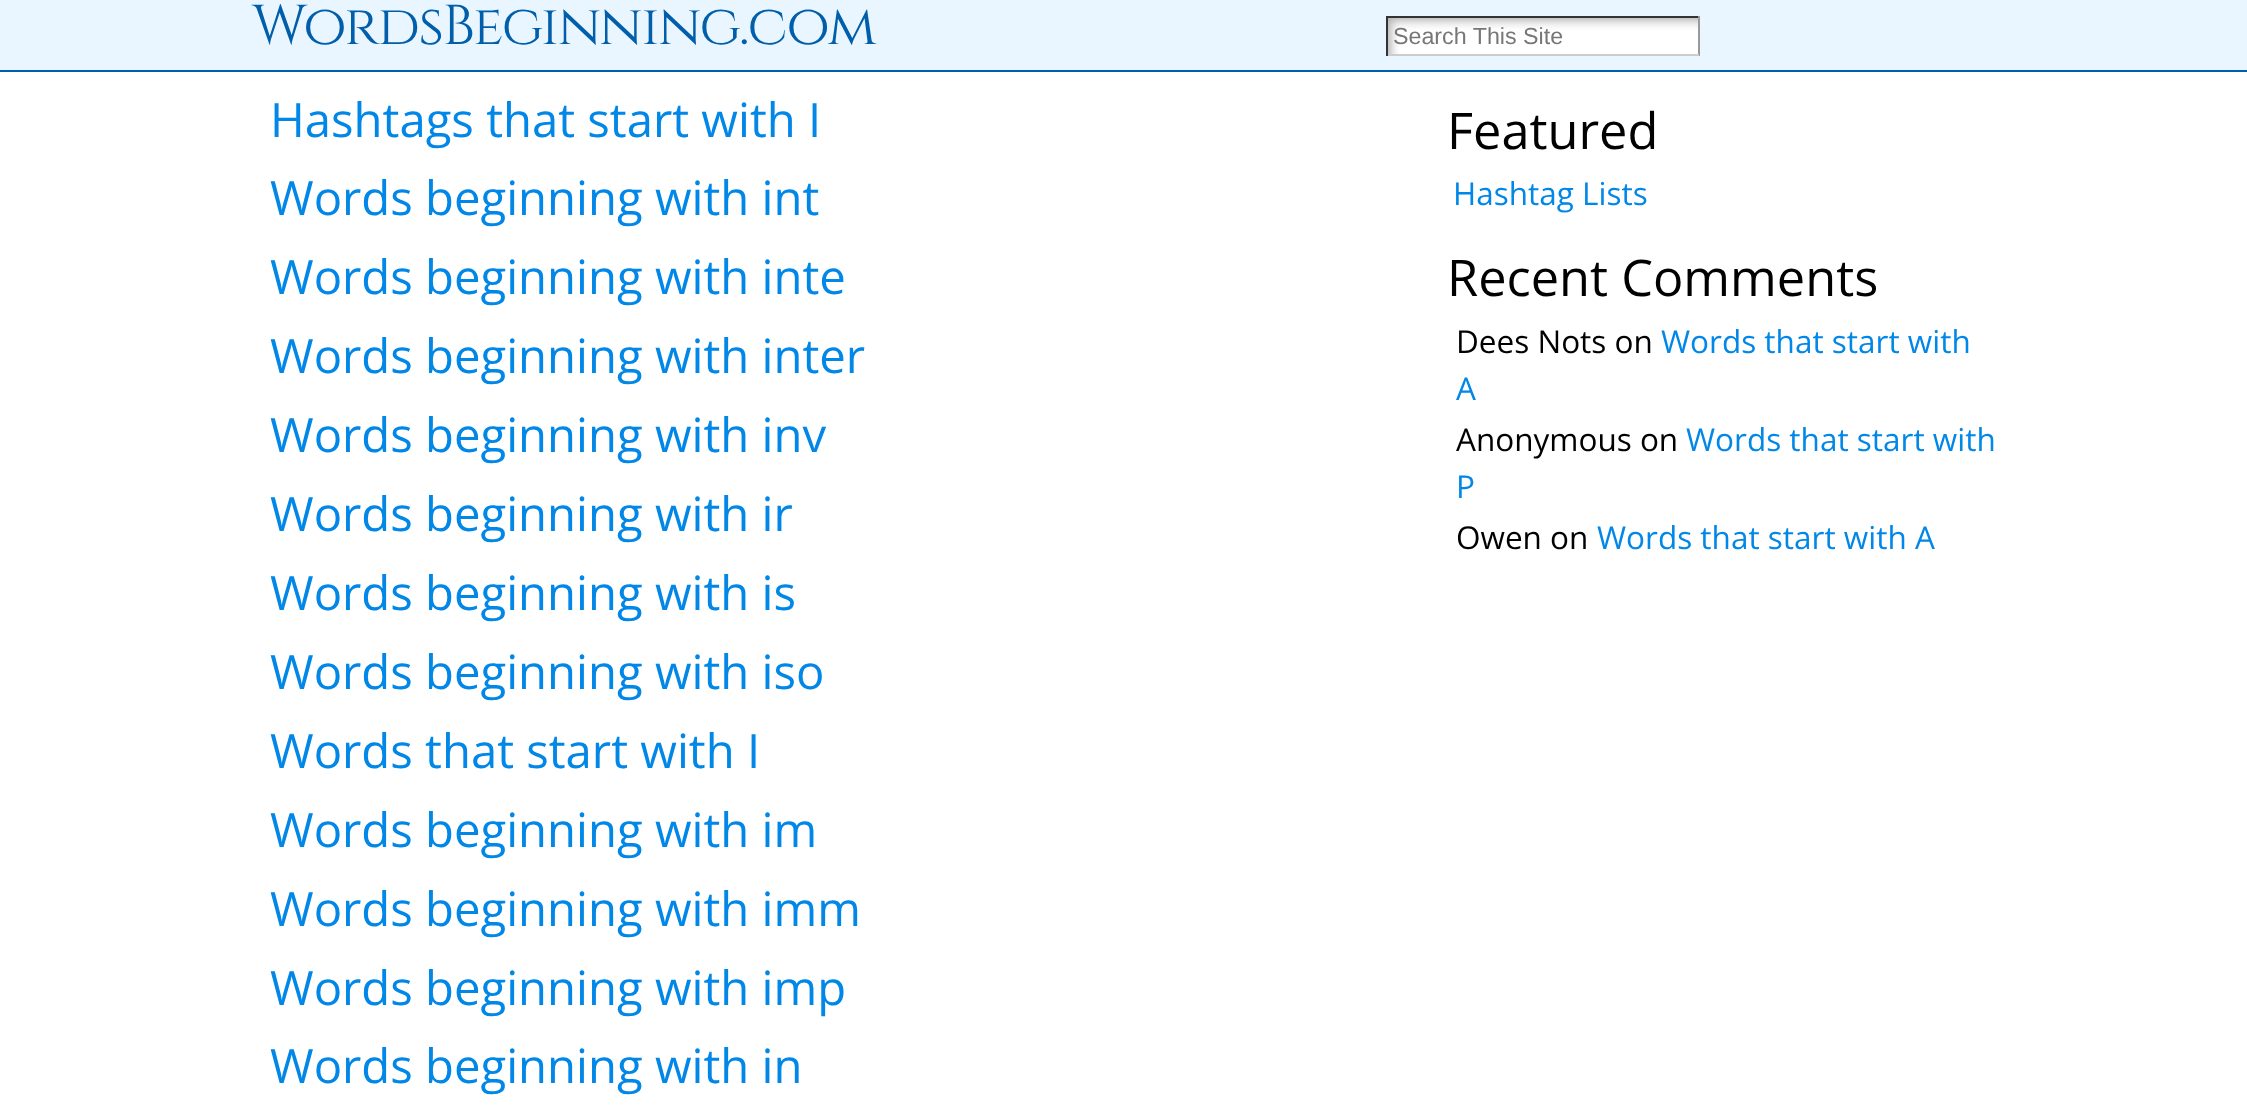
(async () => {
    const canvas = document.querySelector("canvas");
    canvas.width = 2247;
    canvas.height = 1119;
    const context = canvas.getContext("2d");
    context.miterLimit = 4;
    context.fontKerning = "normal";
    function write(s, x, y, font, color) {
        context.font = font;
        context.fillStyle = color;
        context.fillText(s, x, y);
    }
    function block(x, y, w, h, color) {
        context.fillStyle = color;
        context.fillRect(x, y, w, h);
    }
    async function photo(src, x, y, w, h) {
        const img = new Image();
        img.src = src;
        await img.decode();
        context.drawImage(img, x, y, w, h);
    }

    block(0, 0, 2247, 1119, "rgb(255, 255, 255)");
    block(0, 0, 2247, 70, "rgb(233, 246, 255)");
    context.letterSpacing = "-1.75px";
    write("WordsBeginning.com", 252, 44, "56px Cinzel", "rgb(0, 94, 170)");
    await photo("media/1.png", 1388, 18, 310, 36);
    block(1386, 16, 313, 2, "rgb(51, 51, 51)");
    block(1698, 16, 2, 40, "rgb(153, 153, 153)");
    block(1386, 54, 313, 2, "rgb(204, 204, 204)");
    block(1386, 16, 2, 40, "rgb(51, 51, 51)");
    context.letterSpacing = "0px";
    write("Search This Site", 1393, 44, "23.25px Liberation Sans", "rgb(119, 119, 119)");
    block(0, 70, 2247, 2, "rgb(0, 94, 170)");
    write("Hashtags that start with I", 270, 137, "47.25px Open Sans", "rgb(0, 135, 231)");
    write("Words beginning with int", 270, 215, "47.25px Open Sans", "rgb(0, 135, 231)");
    write("Words beginning with inte", 270, 294, "47.25px Open Sans", "rgb(0, 135, 231)");
    write("Words beginning with inter", 270, 373, "47.25px Open Sans", "rgb(0, 135, 231)");
    write("Words beginning with inv", 270, 452, "47.25px Open Sans", "rgb(0, 135, 231)");
    write("Words beginning with ir", 270, 531, "47.25px Open Sans", "rgb(0, 135, 231)");
    write("Words beginning with is", 270, 610, "47.25px Open Sans", "rgb(0, 135, 231)");
    write("Words beginning with iso", 270, 689, "47.25px Open Sans", "rgb(0, 135, 231)");
    write("Words that start with I", 270, 768, "47.25px Open Sans", "rgb(0, 135, 231)");
    write("Words beginning with im", 270, 847, "47.25px Open Sans", "rgb(0, 135, 231)");
    write("Words beginning with imm", 270, 926, "47.25px Open Sans", "rgb(0, 135, 231)");
    write("Words beginning with imp", 270, 1005, "47.25px Open Sans", "rgb(0, 135, 231)");
    write("Words beginning with in", 270, 1083, "47.25px Open Sans", "rgb(0, 135, 231)");
    write("Featured", 1447, 149, "50.5px Open Sans", "rgb(0, 0, 0)");
    write("Hashtag Lists", 1453, 205, "31.5px Open Sans", "rgb(0, 135, 231)");
    write("Recent Comments", 1447, 296, "50.5px Open Sans", "rgb(0, 0, 0)");
    write("Dees Nots on", 1456, 353, "31.5px Open Sans", "rgb(0, 0, 0)");
    write("Words that start with", 1661, 353, "31.5px Open Sans", "rgb(0, 135, 231)");
    write("A", 1456, 400, "31.5px Open Sans", "rgb(0, 135, 231)");
    write("Anonymous on", 1456, 451, "31.5px Open Sans", "rgb(0, 0, 0)");
    write("Words that start with", 1686, 451, "31.5px Open Sans", "rgb(0, 135, 231)");
    write("P", 1456, 498, "31.5px Open Sans", "rgb(0, 135, 231)");
    write("Owen on", 1456, 549, "31.5px Open Sans", "rgb(0, 0, 0)");
    write("Words that start with A", 1597, 549, "31.5px Open Sans", "rgb(0, 135, 231)");
})();
